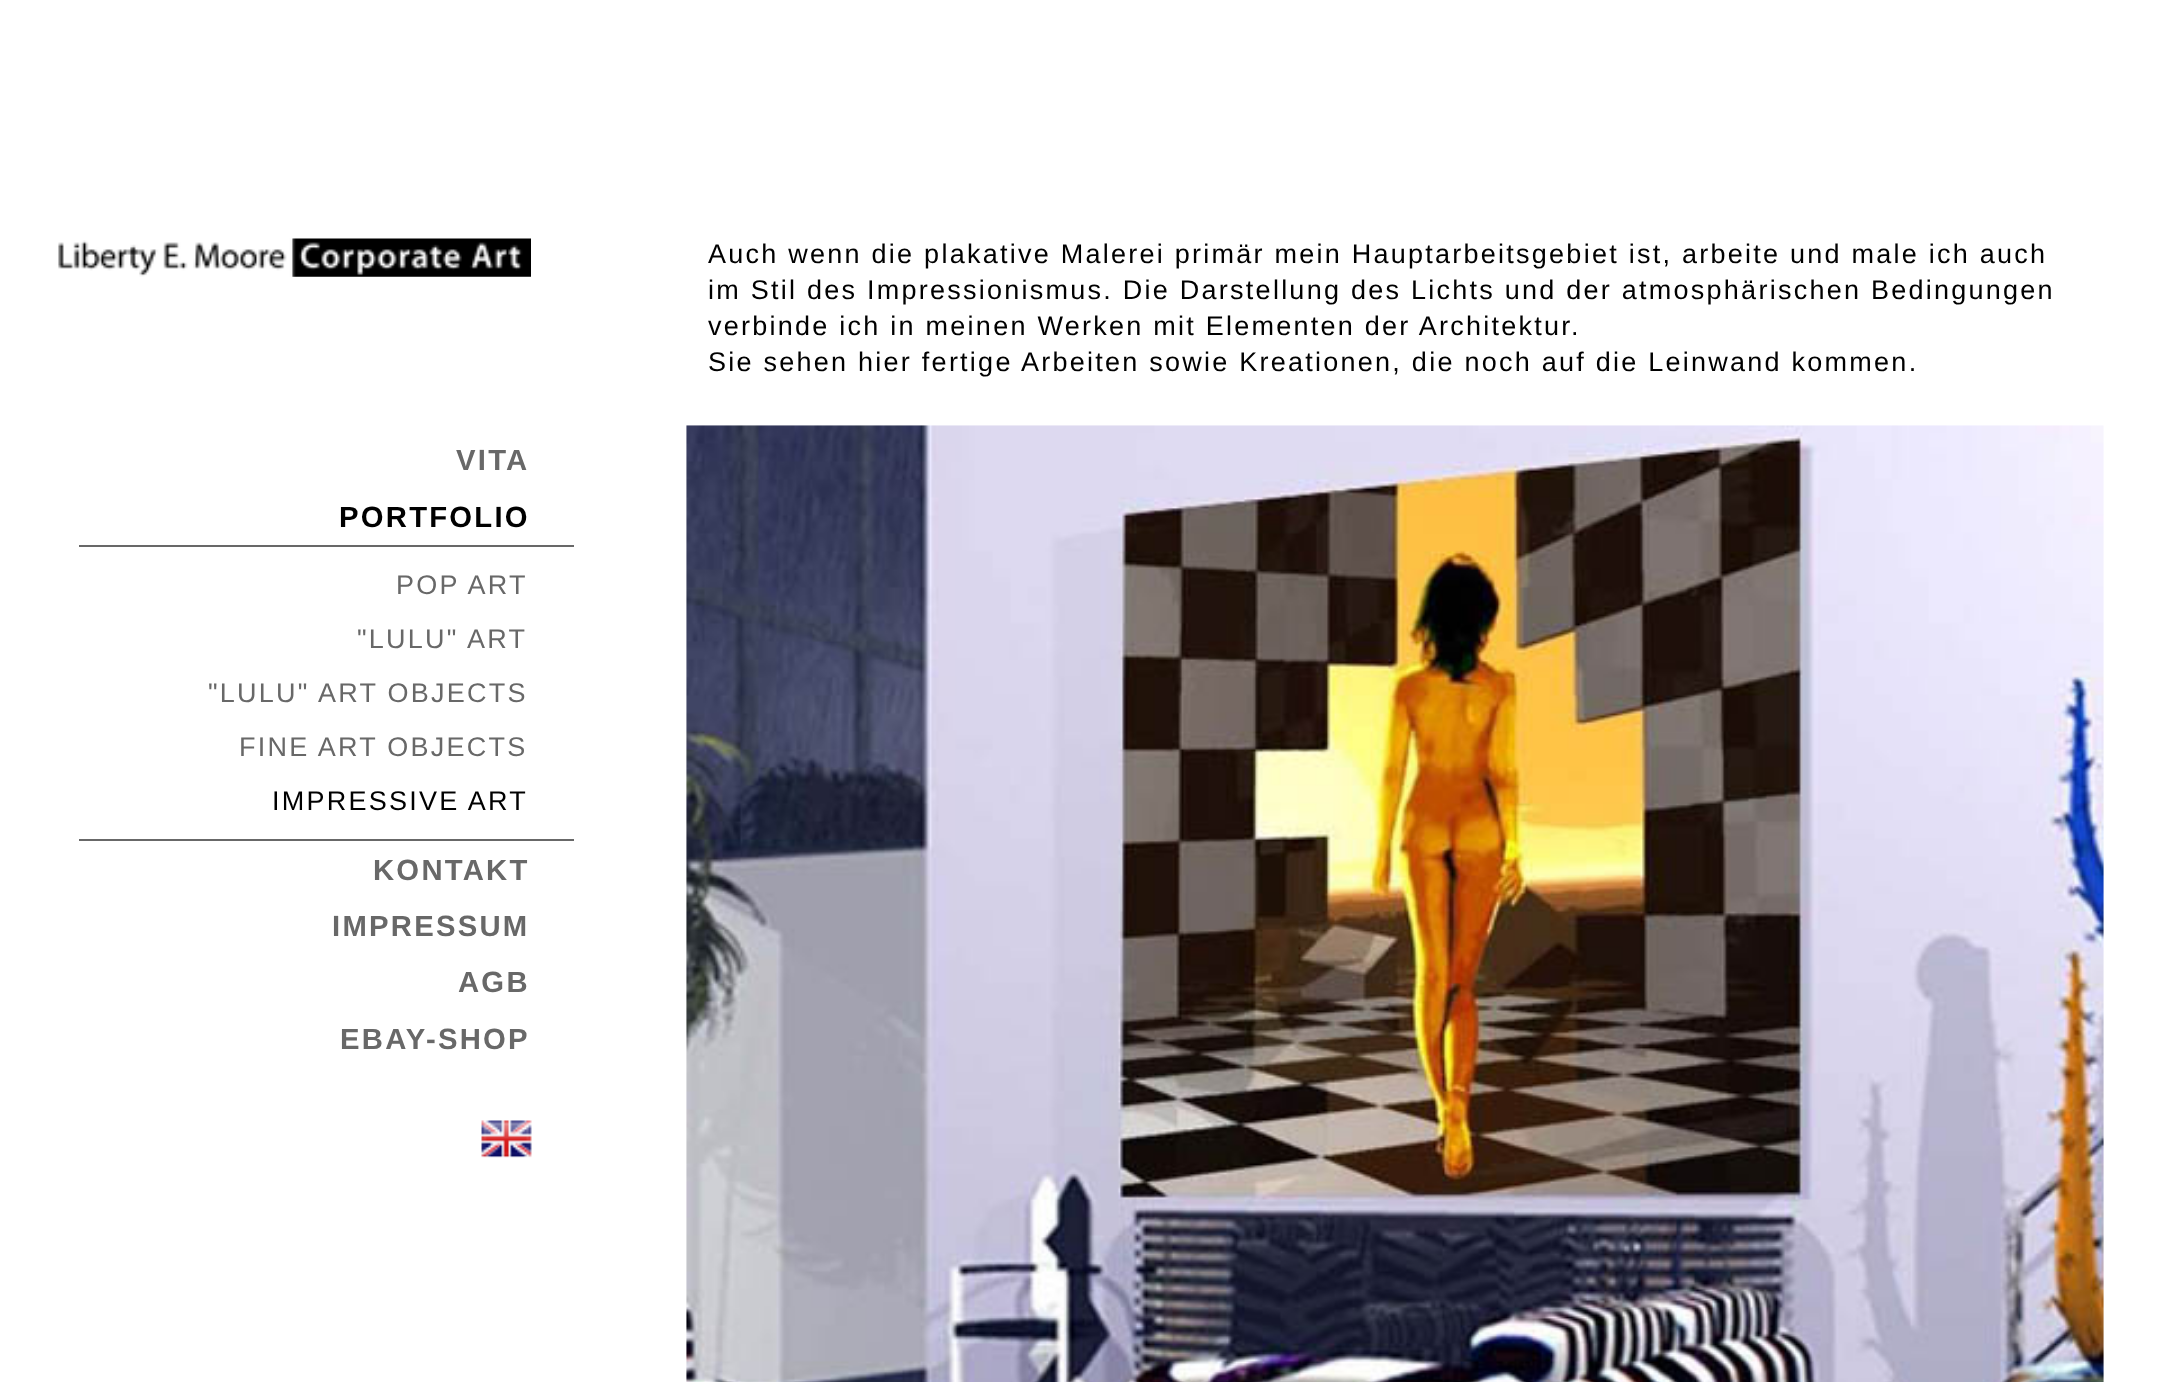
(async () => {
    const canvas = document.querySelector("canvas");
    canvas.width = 2180;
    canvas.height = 1382;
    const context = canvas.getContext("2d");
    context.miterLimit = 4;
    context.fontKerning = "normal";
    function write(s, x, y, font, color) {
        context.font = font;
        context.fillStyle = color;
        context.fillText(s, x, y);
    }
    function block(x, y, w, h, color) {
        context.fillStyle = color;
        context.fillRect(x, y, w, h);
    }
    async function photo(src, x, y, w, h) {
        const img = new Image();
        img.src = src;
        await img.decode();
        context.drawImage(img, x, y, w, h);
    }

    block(0, 0, 2180, 1382, "rgb(255, 255, 255)");
    context.letterSpacing = "2.25px";
    write("Auch wenn die plakative Malerei primär mein Hauptarbeitsgebiet ist, arbeite und male ich auch", 708, 263, "27px Liberation Sans", "rgb(0, 0, 0)");
    write("im Stil des Impressionismus. Die Darstellung des Lichts und der atmosphärischen Bedingungen", 708, 299, "27px Liberation Sans", "rgb(0, 0, 0)");
    write("verbinde ich in meinen Werken mit Elementen der Architektur.", 708, 335, "27px Liberation Sans", "rgb(0, 0, 0)");
    write("Sie sehen hier fertige Arbeiten sowie Kreationen, die noch auf die Leinwand kommen.", 708, 371, "27px Liberation Sans", "rgb(0, 0, 0)");
    await photo("media/1.png", 686, 425, 1418, 957);
    await photo("media/2.png", 58, 238, 473, 39);
    write("VITA", 456, 470, "bold 29.25px Liberation Sans", "rgb(104, 104, 104)");
    write("PORTFOLIO", 339, 527, "bold 29.25px Liberation Sans", "rgb(0, 0, 0)");
    block(79, 545, 495, 2, "rgb(104, 104, 104)");
    block(79, 839, 495, 2, "rgb(104, 104, 104)");
    write("POP ART", 396, 594, "27px Liberation Sans", "rgb(104, 104, 104)");
    write("\"LULU\" ART", 357, 648, "27px Liberation Sans", "rgb(104, 104, 104)");
    write("\"LULU\" ART OBJECTS", 208, 702, "27px Liberation Sans", "rgb(104, 104, 104)");
    write("FINE ART OBJECTS", 239, 756, "27px Liberation Sans", "rgb(104, 104, 104)");
    write("IMPRESSIVE ART", 272, 810, "27px Liberation Sans", "rgb(0, 0, 0)");
    write("KONTAKT", 373, 880, "bold 29.25px Liberation Sans", "rgb(104, 104, 104)");
    write("IMPRESSUM", 332, 936, "bold 29.25px Liberation Sans", "rgb(104, 104, 104)");
    write("AGB", 458, 992, "bold 29.25px Liberation Sans", "rgb(104, 104, 104)");
    write("EBAY-SHOP", 340, 1049, "bold 29.25px Liberation Sans", "rgb(104, 104, 104)");
    await photo("media/3.png", 481, 1120, 51, 38);
})();
